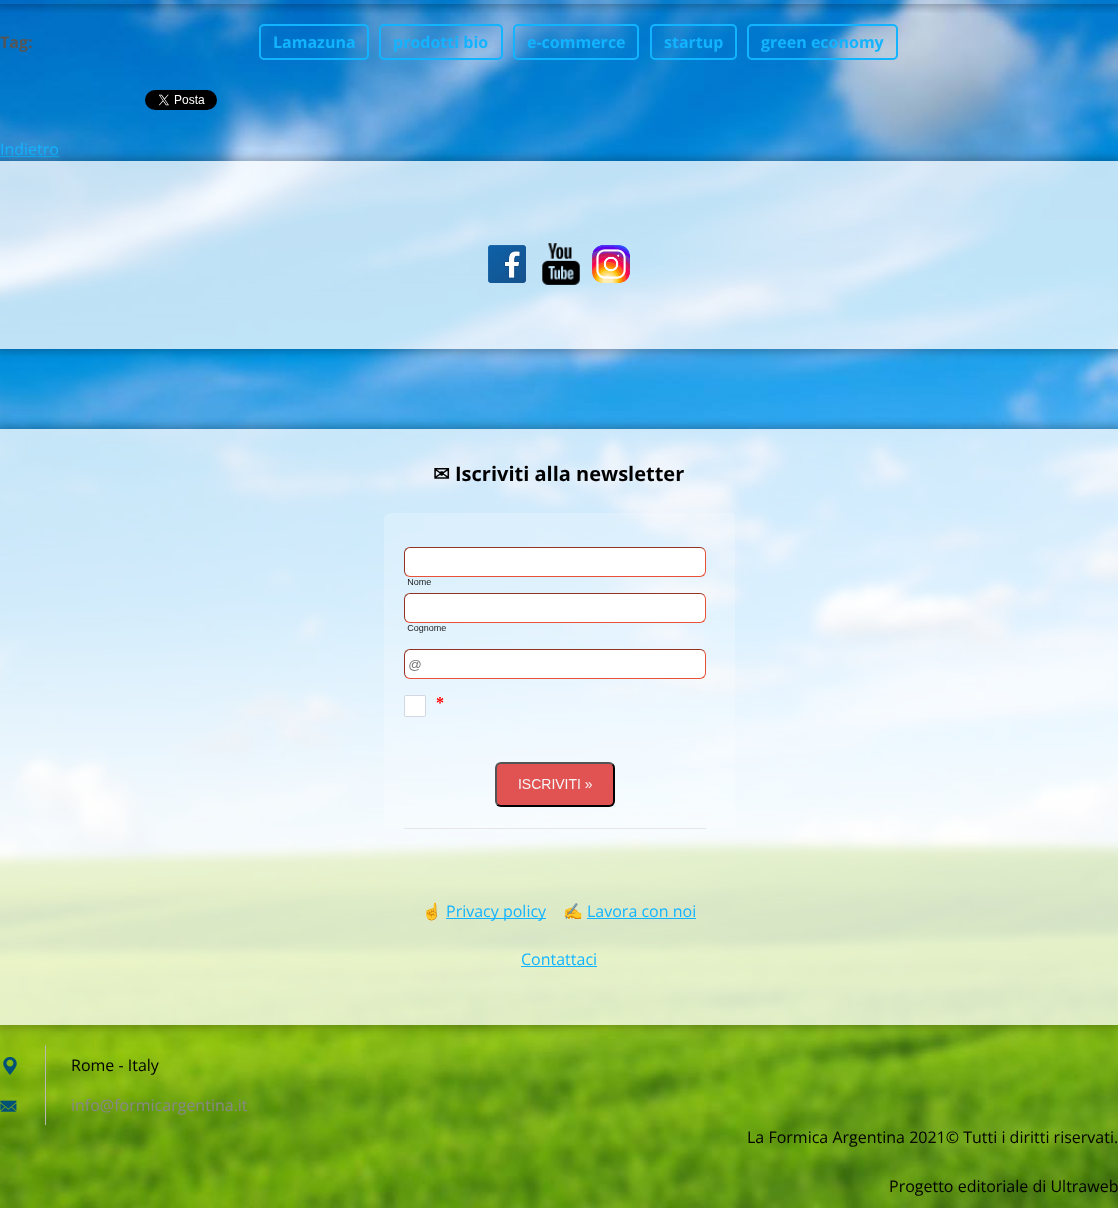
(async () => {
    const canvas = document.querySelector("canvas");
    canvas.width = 1118;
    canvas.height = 1208;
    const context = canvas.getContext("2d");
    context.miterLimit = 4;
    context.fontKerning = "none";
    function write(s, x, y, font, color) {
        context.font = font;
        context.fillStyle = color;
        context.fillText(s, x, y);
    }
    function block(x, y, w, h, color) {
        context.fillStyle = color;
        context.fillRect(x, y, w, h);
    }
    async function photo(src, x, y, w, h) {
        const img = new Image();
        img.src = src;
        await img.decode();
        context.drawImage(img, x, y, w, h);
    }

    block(0, 0, 1118, 1208, "rgb(255, 255, 255)");
    await photo("media/1.png", 0, 0, 1118, 1208);
    context.save();
    context.beginPath();
    context.rect(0, 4, 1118, 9);
    context.clip();
    context.fillStyle = "rgba(0, 0, 0, 0.25)";
    context.filter = "blur(4.5px)";
    context.beginPath();
    context.rect(-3, -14, 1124, 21);
    context.fill();
    context.filter = "none";
    context.restore();
    write("Tag:", 0, 48, "bold 16px Open Sans", "rgb(85, 85, 85)");
    context.beginPath();
    context.roundRect(260, 25, 108, 34, 4);
    context.strokeStyle = "rgb(19, 180, 255)";
    context.lineWidth = 2;
    context.stroke();
    write("Lamazuna", 273, 48, "bold 16px Open Sans", "rgb(19, 180, 255)");
    context.beginPath();
    context.roundRect(380, 25, 122, 34, 4);
    context.stroke();
    write("prodotti bio", 393, 48, "bold 16px Open Sans", "rgb(19, 180, 255)");
    context.beginPath();
    context.roundRect(514, 25, 124, 34, 4);
    context.stroke();
    write("e-commerce", 527, 48, "bold 16px Open Sans", "rgb(19, 180, 255)");
    context.beginPath();
    context.roundRect(651, 25, 85, 34, 4);
    context.stroke();
    write("startup", 664, 48, "bold 16px Open Sans", "rgb(19, 180, 255)");
    context.beginPath();
    context.roundRect(748, 25, 149, 34, 4);
    context.stroke();
    write("green economy", 761, 48, "bold 16px Open Sans", "rgb(19, 180, 255)");
    await photo("media/2.png", 145, 90, 72, 20);
    write("Indietro", 0, 155, "16px Open Sans", "rgb(19, 180, 255)");
    block(0, 156, 59, 1, "rgb(19, 180, 255)");
    context.save();
    context.beginPath();
    context.moveTo(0, 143);
    context.lineTo(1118, 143);
    context.lineTo(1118, 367);
    context.lineTo(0, 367);
    context.closePath();
    context.moveTo(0, 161);
    context.lineTo(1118, 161);
    context.lineTo(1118, 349);
    context.lineTo(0, 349);
    context.closePath();
    context.clip("evenodd");
    context.fillStyle = "rgba(0, 0, 0, 0.25)";
    context.filter = "blur(4.5px)";
    context.beginPath();
    context.rect(-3, 158, 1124, 194);
    context.fill();
    context.filter = "none";
    context.restore();
    block(0, 161, 1118, 158, "rgba(255, 255, 255, 0.75)");
    await photo("media/3.png", 488, 245, 38, 38);
    await photo("media/4.png", 542, 243, 38, 42);
    await photo("media/5.png", 592, 245, 38, 38);
    block(0, 319, 1118, 30, "rgba(255, 255, 255, 0.75)");
    context.save();
    context.beginPath();
    context.moveTo(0, 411);
    context.lineTo(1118, 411);
    context.lineTo(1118, 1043);
    context.lineTo(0, 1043);
    context.closePath();
    context.moveTo(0, 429);
    context.lineTo(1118, 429);
    context.lineTo(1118, 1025);
    context.lineTo(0, 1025);
    context.closePath();
    context.clip("evenodd");
    context.fillStyle = "rgba(0, 0, 0, 0.25)";
    context.filter = "blur(4.5px)";
    context.beginPath();
    context.rect(-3, 426, 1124, 602);
    context.fill();
    context.filter = "none";
    context.restore();
    block(0, 429, 1118, 566, "rgba(255, 255, 255, 0.75)");
    write("✉", 433, 481, "bold 20px DejaVu Sans", "rgb(0, 0, 0)");
    write("Iscriviti alla newsletter", 455, 481, "bold 20px Open Sans", "rgb(0, 0, 0)");
    await photo("media/6.png", 384, 513, 351, 316);
    write("☝", 422, 917, "16px Noto Color Emoji", "rgb(85, 85, 85)");
    block(446, 918, 100, 1, "rgb(19, 180, 255)");
    write("Privacy policy", 446, 917, "16px Open Sans", "rgb(19, 180, 255)");
    write("✍", 563, 917, "16px Noto Color Emoji", "rgb(85, 85, 85)");
    write("Lavora con noi", 587, 917, "16px Open Sans", "rgb(19, 180, 255)");
    block(587, 918, 109, 1, "rgb(19, 180, 255)");
    write("Contattaci", 521, 965, "16px Open Sans", "rgb(19, 180, 255)");
    block(521, 966, 76, 1, "rgb(19, 180, 255)");
    block(0, 995, 1118, 30, "rgba(255, 255, 255, 0.75)");
    await photo("media/7.png", 3, 1057, 14, 18);
    block(45, 1045, 1, 80, "rgb(183, 183, 183)");
    write("Rome - Italy", 71, 1071, "16px Open Sans", "rgb(0, 0, 0)");
    await photo("media/8.png", 0, 1100, 17, 12);
    write("info@formicargentina.it", 71, 1111, "16px Open Sans", "rgb(136, 136, 136)");
    write("La Formica Argentina 2021© Tutti i diritti riservati.", 747, 1143, "16px Open Sans", "rgb(0, 0, 0)");
    write("Progetto editoriale di Ultraweb", 889, 1192, "16px Open Sans", "rgb(0, 0, 0)");
})();
